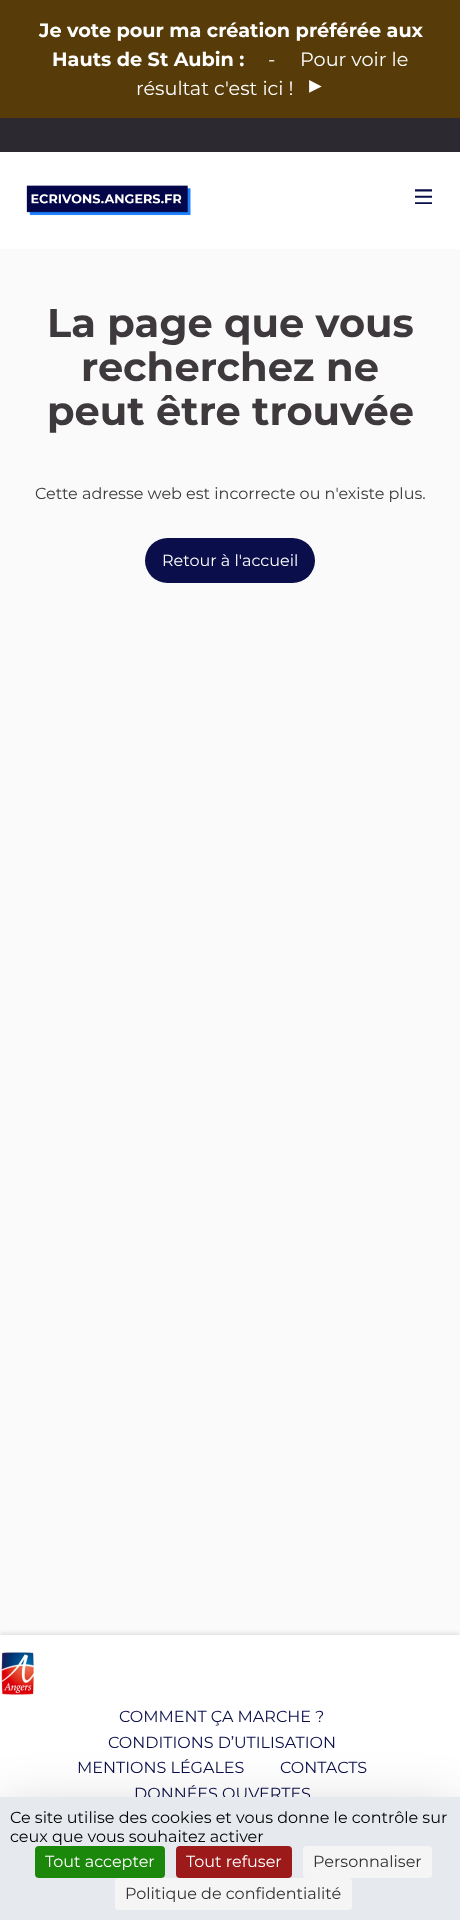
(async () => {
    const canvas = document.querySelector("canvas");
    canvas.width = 460;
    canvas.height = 1920;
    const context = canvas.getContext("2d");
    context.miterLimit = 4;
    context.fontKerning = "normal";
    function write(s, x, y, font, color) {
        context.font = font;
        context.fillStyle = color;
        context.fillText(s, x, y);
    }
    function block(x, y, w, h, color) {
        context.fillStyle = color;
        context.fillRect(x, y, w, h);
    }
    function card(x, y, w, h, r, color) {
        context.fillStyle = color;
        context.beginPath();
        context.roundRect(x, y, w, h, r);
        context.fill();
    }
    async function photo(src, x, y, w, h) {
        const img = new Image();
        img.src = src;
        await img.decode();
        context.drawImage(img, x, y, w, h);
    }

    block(0, 0, 460, 1920, "rgb(87, 60, 10)");
    write("Je vote pour ma création préférée aux", 39, 37, "bold 19.25px Montserrat", "rgb(255, 255, 255)");
    write("Hauts de St Aubin :", 52, 66, "bold 19.25px Montserrat", "rgb(255, 255, 255)");
    write("-", 268, 66, "19.25px Montserrat", "rgb(255, 255, 255)");
    write("Pour voir le", 300, 66, "19.25px Montserrat", "rgb(255, 255, 255)");
    write("résultat c'est ici !", 136, 95, "19.25px Montserrat", "rgb(255, 255, 255)");
    await photo("media/1.png", 309, 80, 13, 13);
    block(0, 249, 460, 1386, "rgb(250, 250, 250)");
    block(0, 152, 460, 97, "rgb(255, 255, 255)");
    block(0, 118, 460, 34, "rgb(44, 41, 48)");
    await photo("media/2.png", 26, 185, 165, 31);
    await photo("media/3.png", 415, 189, 17, 15);
    write("La page que vous", 47, 337, "bold 40px Montserrat", "rgb(61, 57, 60)");
    write("recherchez ne", 81, 381, "bold 40px Montserrat", "rgb(61, 57, 60)");
    write("peut être trouvée", 47, 425, "bold 40px Montserrat", "rgb(61, 57, 60)");
    write("Cette adresse web est incorrecte ou n'existe plus.", 35, 499, "16px Montserrat", "rgb(61, 57, 60)");
    card(145, 538, 170, 45, 22.5, "rgb(10, 14, 74)");
    write("Retour à l'accueil", 162, 566, "16px Montserrat", "rgb(255, 255, 255)");
    context.fillStyle = "rgba(0, 0, 0, 0.1)";
    context.filter = "blur(2px)";
    context.beginPath();
    context.rect(0, 1633, 460, 221);
    context.fill();
    context.filter = "none";
    block(0, 1635, 460, 162, "rgb(255, 255, 255)");
    await photo("media/4.png", 1, 1652, 33, 43);
    write("COMMENT ÇA MARCHE ?", 119, 1722, "16px Montserrat", "rgb(10, 14, 74)");
    write("CONDITIONS D’UTILISATION", 108, 1748, "16px Montserrat", "rgb(10, 14, 74)");
    write("MENTIONS LÉGALES", 77, 1773, "16px Montserrat", "rgb(10, 14, 74)");
    write("CONTACTS", 280, 1773, "16px Montserrat", "rgb(10, 14, 74)");
    write("DONNÉES OUVERTES", 134, 1799, "16px Montserrat", "rgb(10, 14, 74)");
    context.fillStyle = "rgba(0, 0, 0, 0.25)";
    context.filter = "blur(30px)";
    context.beginPath();
    context.rect(0, 1817, 460, 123);
    context.fill();
    context.filter = "none";
    block(0, 1797, 460, 123, "rgb(230, 234, 238)");
    write("Ce site utilise des cookies et vous donne le contrôle sur", 10, 1823, "16px Montserrat", "rgb(0, 0, 0)");
    write("ceux que vous souhaitez activer", 10, 1842, "16px Montserrat", "rgb(0, 0, 0)");
    card(35, 1846, 130, 32, 4, "rgb(27, 135, 11)");
    write("Tout accepter", 45, 1867, "16px Montserrat", "rgb(255, 255, 255)");
    card(176, 1846, 116, 32, 4, "rgb(156, 26, 26)");
    write("Tout refuser", 186, 1867, "16px Montserrat", "rgb(255, 255, 255)");
    card(303, 1846, 129, 32, 4, "rgb(245, 245, 245)");
    write("Personnaliser", 313, 1867, "16px Montserrat", "rgb(51, 51, 51)");
    card(115, 1878, 237, 32, 4, "rgb(245, 245, 245)");
    write("Politique de confidentialité", 125, 1899, "16px Montserrat", "rgb(51, 51, 51)");
})();
